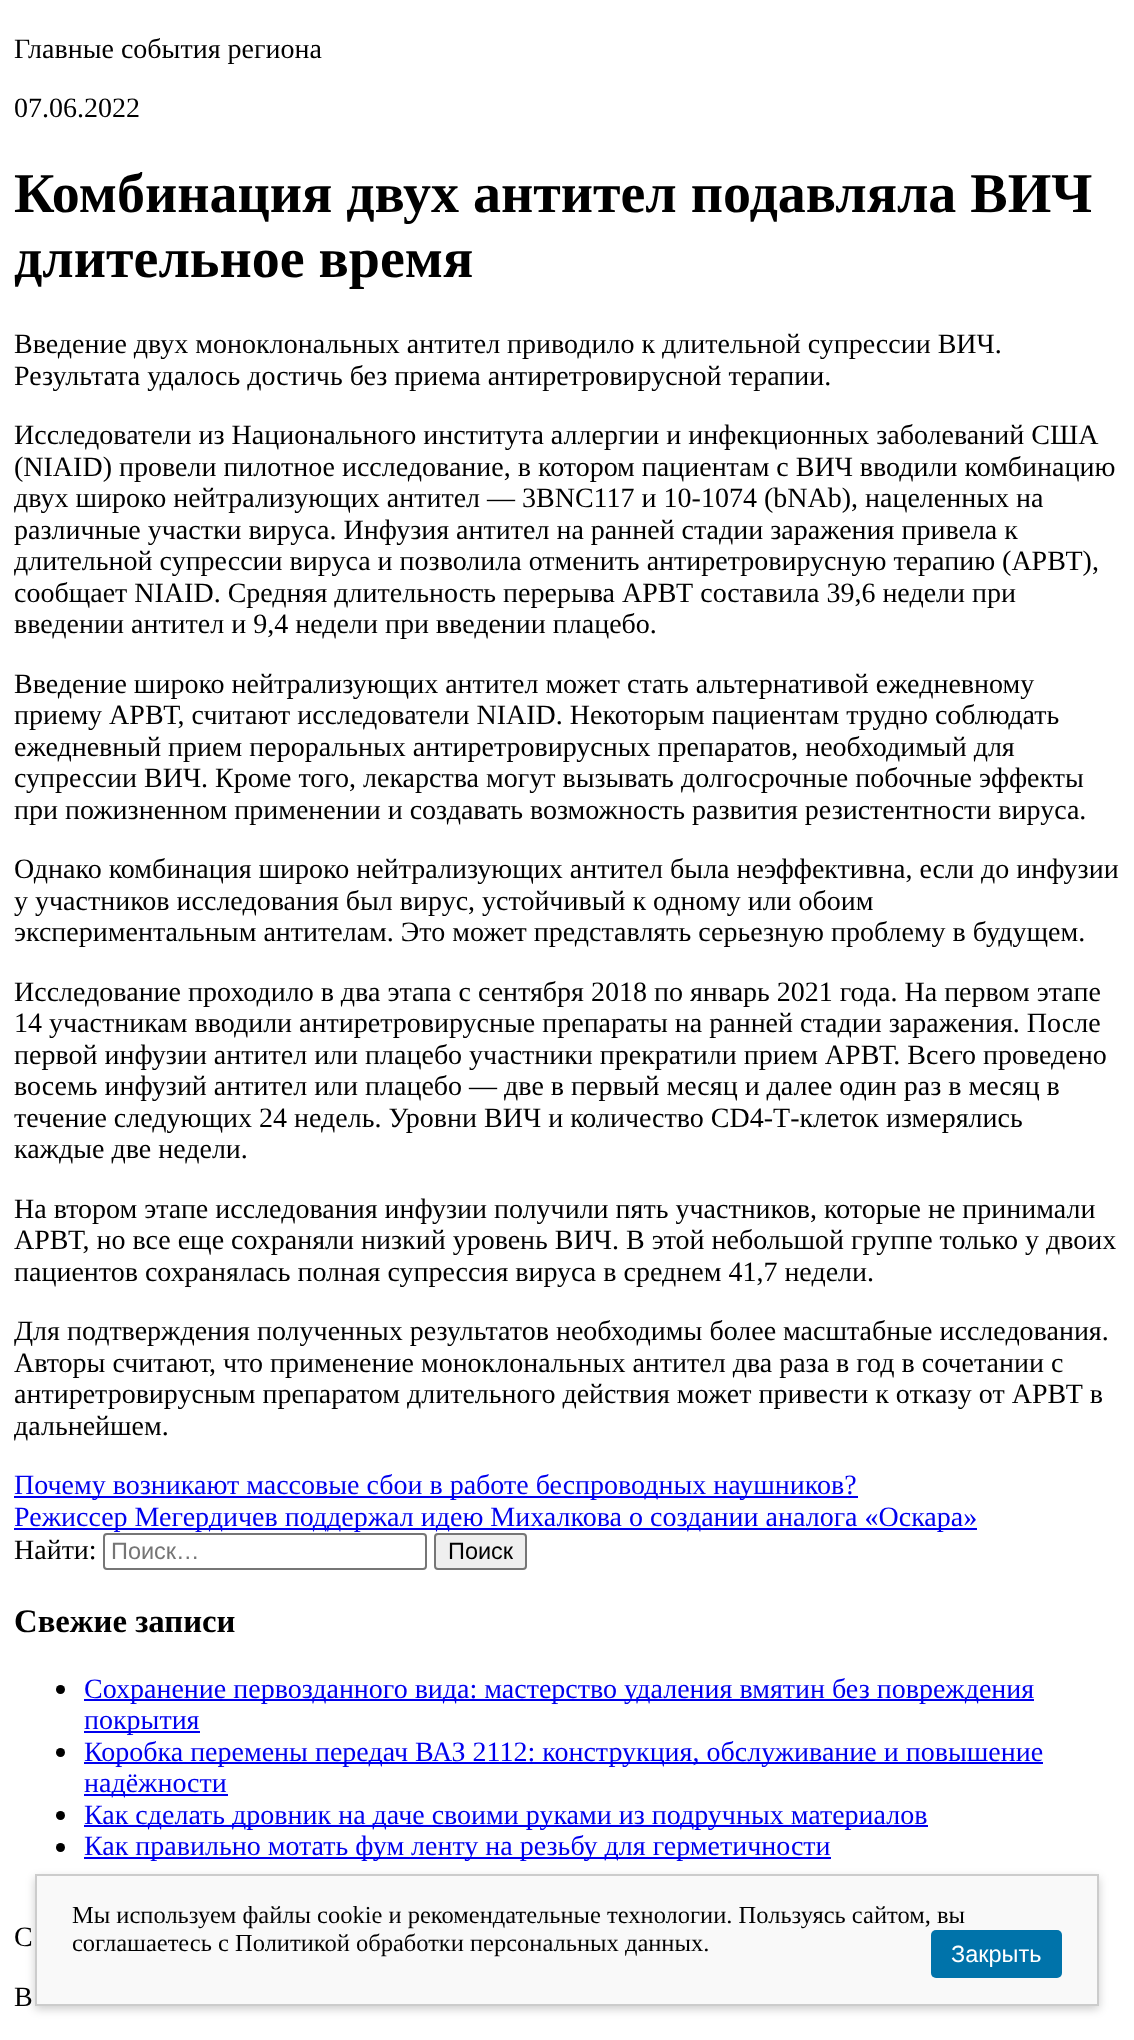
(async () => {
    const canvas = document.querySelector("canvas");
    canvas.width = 1134;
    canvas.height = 2040;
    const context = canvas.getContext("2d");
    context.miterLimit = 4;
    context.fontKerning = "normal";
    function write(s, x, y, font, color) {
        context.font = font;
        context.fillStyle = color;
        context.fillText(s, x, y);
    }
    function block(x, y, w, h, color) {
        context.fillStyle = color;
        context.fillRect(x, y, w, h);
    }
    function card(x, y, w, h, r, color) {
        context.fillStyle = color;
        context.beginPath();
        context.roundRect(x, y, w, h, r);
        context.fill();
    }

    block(0, 0, 1134, 2040, "rgb(255, 255, 255)");
    write("Главные события региона", 14, 58, "28px Liberation Serif", "rgb(0, 0, 0)");
    write("07.06.2022", 14, 117, "28px Liberation Serif", "rgb(0, 0, 0)");
    write("Комбинация двух антител подавляла ВИЧ", 14, 212, "bold 56px Liberation Serif", "rgb(0, 0, 0)");
    write("длительное время", 14, 277, "bold 56px Liberation Serif", "rgb(0, 0, 0)");
    write("Введение двух моноклональных антител приводило к длительной супрессии ВИЧ.", 14, 353, "28px Liberation Serif", "rgb(0, 0, 0)");
    write("Результата удалось достичь без приема антиретровирусной терапии.", 14, 385, "28px Liberation Serif", "rgb(0, 0, 0)");
    write("Исследователи из Национального института аллергии и инфекционных заболеваний США", 14, 444, "28px Liberation Serif", "rgb(0, 0, 0)");
    write("(NIAID) провели пилотное исследование, в котором пациентам с ВИЧ вводили комбинацию", 14, 476, "28px Liberation Serif", "rgb(0, 0, 0)");
    write("двух широко нейтрализующих антител — 3BNC117 и 10-1074 (bNAb), нацеленных на", 14, 507, "28px Liberation Serif", "rgb(0, 0, 0)");
    write("различные участки вируса. Инфузия антител на ранней стадии заражения привела к", 14, 539, "28px Liberation Serif", "rgb(0, 0, 0)");
    write("длительной супрессии вируса и позволила отменить антиретровирусную терапию (АРВТ),", 14, 570, "28px Liberation Serif", "rgb(0, 0, 0)");
    write("сообщает NIAID. Средняя длительность перерыва АРВТ составила 39,6 недели при", 14, 602, "28px Liberation Serif", "rgb(0, 0, 0)");
    write("введении антител и 9,4 недели при введении плацебо.", 14, 633, "28px Liberation Serif", "rgb(0, 0, 0)");
    write("Введение широко нейтрализующих антител может стать альтернативой ежедневному", 14, 693, "28px Liberation Serif", "rgb(0, 0, 0)");
    write("приему АРВТ, считают исследователи NIAID. Некоторым пациентам трудно соблюдать", 14, 724, "28px Liberation Serif", "rgb(0, 0, 0)");
    write("ежедневный прием пероральных антиретровирусных препаратов, необходимый для", 14, 756, "28px Liberation Serif", "rgb(0, 0, 0)");
    write("супрессии ВИЧ. Кроме того, лекарства могут вызывать долгосрочные побочные эффекты", 14, 787, "28px Liberation Serif", "rgb(0, 0, 0)");
    write("при пожизненном применении и создавать возможность развития резистентности вируса.", 14, 819, "28px Liberation Serif", "rgb(0, 0, 0)");
    write("Однако комбинация широко нейтрализующих антител была неэффективна, если до инфузии", 14, 878, "28px Liberation Serif", "rgb(0, 0, 0)");
    write("у участников исследования был вирус, устойчивый к одному или обоим", 14, 910, "28px Liberation Serif", "rgb(0, 0, 0)");
    write("экспериментальным антителам. Это может представлять серьезную проблему в будущем.", 14, 941, "28px Liberation Serif", "rgb(0, 0, 0)");
    write("Исследование проходило в два этапа с сентября 2018 по январь 2021 года. На первом этапе", 14, 1001, "28px Liberation Serif", "rgb(0, 0, 0)");
    write("14 участникам вводили антиретровирусные препараты на ранней стадии заражения. После", 14, 1032, "28px Liberation Serif", "rgb(0, 0, 0)");
    write("первой инфузии антител или плацебо участники прекратили прием АРВТ. Всего проведено", 14, 1064, "28px Liberation Serif", "rgb(0, 0, 0)");
    write("восемь инфузий антител или плацебо — две в первый месяц и далее один раз в месяц в", 14, 1095, "28px Liberation Serif", "rgb(0, 0, 0)");
    write("течение следующих 24 недель. Уровни ВИЧ и количество CD4-Т-клеток измерялись", 14, 1127, "28px Liberation Serif", "rgb(0, 0, 0)");
    write("каждые две недели.", 14, 1158, "28px Liberation Serif", "rgb(0, 0, 0)");
    write("На втором этапе исследования инфузии получили пять участников, которые не принимали", 14, 1218, "28px Liberation Serif", "rgb(0, 0, 0)");
    write("АРВТ, но все еще сохраняли низкий уровень ВИЧ. В этой небольшой группе только у двоих", 14, 1249, "28px Liberation Serif", "rgb(0, 0, 0)");
    write("пациентов сохранялась полная супрессия вируса в среднем 41,7 недели.", 14, 1281, "28px Liberation Serif", "rgb(0, 0, 0)");
    write("Для подтверждения полученных результатов необходимы более масштабные исследования.", 14, 1340, "28px Liberation Serif", "rgb(0, 0, 0)");
    write("Авторы считают, что применение моноклональных антител два раза в год в сочетании с", 14, 1372, "28px Liberation Serif", "rgb(0, 0, 0)");
    write("антиретровирусным препаратом длительного действия может привести к отказу от АРВТ в", 14, 1403, "28px Liberation Serif", "rgb(0, 0, 0)");
    write("дальнейшем.", 14, 1435, "28px Liberation Serif", "rgb(0, 0, 0)");
    block(14, 1496, 844, 2, "rgb(0, 0, 238)");
    write("Почему возникают массовые сбои в работе беспроводных наушников?", 14, 1494, "28px Liberation Serif", "rgb(0, 0, 238)");
    block(14, 1528, 963, 2, "rgb(0, 0, 238)");
    write("Режиссер Мегердичев поддержал идею Михалкова о создании аналога «Оскара»", 14, 1526, "28px Liberation Serif", "rgb(0, 0, 238)");
    write("Найти:", 14, 1559, "28px Liberation Serif", "rgb(0, 0, 0)");
    context.beginPath();
    context.roundRect(104, 1534, 322, 35, 3);
    context.strokeStyle = "rgb(118, 118, 118)";
    context.lineWidth = 2;
    context.stroke();
    write("Поиск…", 111, 1559, "23.5px Liberation Sans", "rgb(117, 117, 117)");
    context.fillStyle = "rgb(239, 239, 239)";
    context.beginPath();
    context.roundRect(435, 1534, 91, 35, 3);
    context.fill();
    context.stroke();
    write("Поиск", 448, 1559, "23.5px Liberation Sans", "rgb(0, 0, 0)");
    write("Свежие записи", 14, 1632, "bold 32.75px Liberation Serif", "rgb(0, 0, 0)");
    context.beginPath();
    context.arc(60.5, 1689.5, 4.5, 0, Math.PI * 2);
    context.fill();
    block(84, 1699, 950, 2, "rgb(0, 0, 238)");
    write("Сохранение первозданного вида: мастерство удаления вмятин без повреждения", 84, 1698, "28px Liberation Serif", "rgb(0, 0, 238)");
    block(84, 1731, 116, 2, "rgb(0, 0, 238)");
    write("покрытия", 84, 1729, "28px Liberation Serif", "rgb(0, 0, 238)");
    context.fillStyle = "rgb(0, 0, 0)";
    context.beginPath();
    context.arc(60.5, 1752.5, 4.5, 0, Math.PI * 2);
    context.fill();
    block(84, 1762, 959, 2, "rgb(0, 0, 238)");
    write("Коробка перемены передач ВАЗ 2112: конструкция, обслуживание и повышение", 84, 1761, "28px Liberation Serif", "rgb(0, 0, 238)");
    block(84, 1794, 144, 2, "rgb(0, 0, 238)");
    write("надёжности", 84, 1792, "28px Liberation Serif", "rgb(0, 0, 238)");
    context.fillStyle = "rgb(0, 0, 0)";
    context.beginPath();
    context.arc(60.5, 1815.5, 4.5, 0, Math.PI * 2);
    context.fill();
    block(84, 1825, 844, 2, "rgb(0, 0, 238)");
    write("Как сделать дровник на даче своими руками из подручных материалов", 84, 1824, "28px Liberation Serif", "rgb(0, 0, 238)");
    context.fillStyle = "rgb(0, 0, 0)";
    context.beginPath();
    context.arc(60.5, 1847.5, 4.5, 0, Math.PI * 2);
    context.fill();
    block(84, 1857, 747, 2, "rgb(0, 0, 238)");
    write("Как правильно мотать фум ленту на резьбу для герметичности", 84, 1855, "28px Liberation Serif", "rgb(0, 0, 238)");
    write("C", 14, 1946, "28px Liberation Serif", "rgb(0, 0, 0)");
    write("В", 14, 2006, "28px Liberation Serif", "rgb(0, 0, 0)");
    context.fillStyle = "rgba(0, 0, 0, 0.2)";
    context.filter = "blur(5px)";
    context.beginPath();
    context.rect(35, 1878, 1064, 131);
    context.fill();
    context.filter = "none";
    context.fillStyle = "rgb(249, 249, 249)";
    context.beginPath();
    context.rect(36, 1875, 1062, 130);
    context.fill();
    context.strokeStyle = "rgb(204, 204, 204)";
    context.stroke();
    write("Мы используем файлы cookie и рекомендательные технологии. Пользуясь сайтом, вы", 72, 1923, "24.5px Liberation Serif", "rgb(0, 0, 0)");
    write("соглашаетесь с Политикой обработки персональных данных.", 72, 1951, "24.5px Liberation Serif", "rgb(0, 0, 0)");
    card(931, 1930, 131, 48, 5, "rgb(0, 115, 170)");
    write("Закрыть", 951, 1962, "23.5px Liberation Sans", "rgb(255, 255, 255)");
})();
